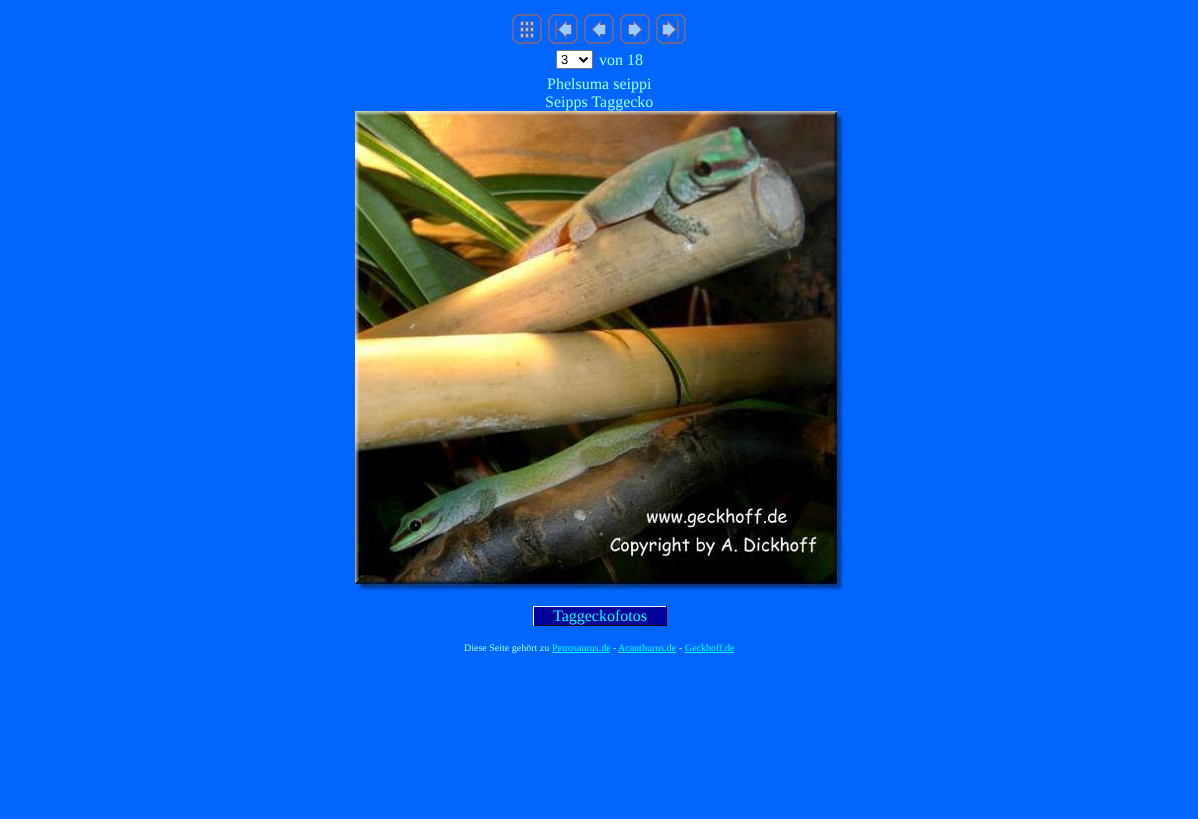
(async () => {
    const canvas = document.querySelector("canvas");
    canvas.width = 1198;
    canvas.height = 819;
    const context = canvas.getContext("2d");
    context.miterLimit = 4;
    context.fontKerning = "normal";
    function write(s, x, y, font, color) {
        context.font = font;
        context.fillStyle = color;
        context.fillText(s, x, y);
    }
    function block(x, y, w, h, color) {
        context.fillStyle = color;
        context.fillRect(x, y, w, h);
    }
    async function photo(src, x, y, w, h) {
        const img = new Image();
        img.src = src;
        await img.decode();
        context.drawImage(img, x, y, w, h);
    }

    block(0, 0, 1198, 819, "rgb(0, 102, 255)");
    await photo("media/1.png", 512, 14, 30, 30);
    await photo("media/2.png", 548, 14, 30, 30);
    await photo("media/3.png", 584, 14, 30, 30);
    await photo("media/4.png", 620, 14, 30, 30);
    await photo("media/5.png", 656, 14, 30, 30);
    context.fillStyle = "rgb(255, 255, 255)";
    context.beginPath();
    context.roundRect(556.5, 50.5, 36, 18, 1.5);
    context.fill();
    context.strokeStyle = "rgb(118, 118, 118)";
    context.stroke();
    context.beginPath();
    context.moveTo(579.5, 57.5);
    context.lineTo(583.5, 61.5);
    context.lineTo(587.5, 57.5);
    context.strokeStyle = "rgb(0, 0, 0)";
    context.lineWidth = 2;
    context.stroke();
    write("3", 561, 64, "13px Liberation Sans", "rgb(0, 0, 0)");
    write("von 18", 599, 65, "16px Liberation Serif", "rgb(153, 255, 255)");
    write("Phelsuma seippi", 547, 89, "16px Liberation Serif", "rgb(153, 255, 255)");
    write("Seipps Taggecko", 545, 107, "16px Liberation Serif", "rgb(153, 255, 255)");
    await photo("media/6.png", 355, 111, 489, 480);
    block(534, 607, 132, 18, "rgb(0, 0, 153)");
    block(533, 606, 134, 1, "rgb(255, 255, 255)");
    block(666, 606, 1, 20, "rgb(0, 0, 0)");
    block(533, 625, 134, 1, "rgb(0, 0, 0)");
    block(533, 606, 1, 20, "rgb(255, 255, 255)");
    write("Taggeckofotos", 553, 621, "16px Liberation Serif", "rgb(0, 255, 255)");
    write("Diese Seite gehört zu", 464, 651, "10px Liberation Serif", "rgb(153, 255, 255)");
    block(552, 652, 58, 1, "rgb(0, 255, 255)");
    write("Petrosaurus.de", 552, 651, "10px Liberation Serif", "rgb(0, 255, 255)");
    write("-", 613, 651, "10px Liberation Serif", "rgb(153, 255, 255)");
    block(618, 652, 58, 1, "rgb(0, 255, 255)");
    write("Acanthurus.de", 618, 651, "10px Liberation Serif", "rgb(0, 255, 255)");
    write("-", 679, 651, "10px Liberation Serif", "rgb(153, 255, 255)");
    block(685, 652, 49, 1, "rgb(0, 255, 255)");
    write("Geckhoff.de", 685, 651, "10px Liberation Serif", "rgb(0, 255, 255)");
})();
